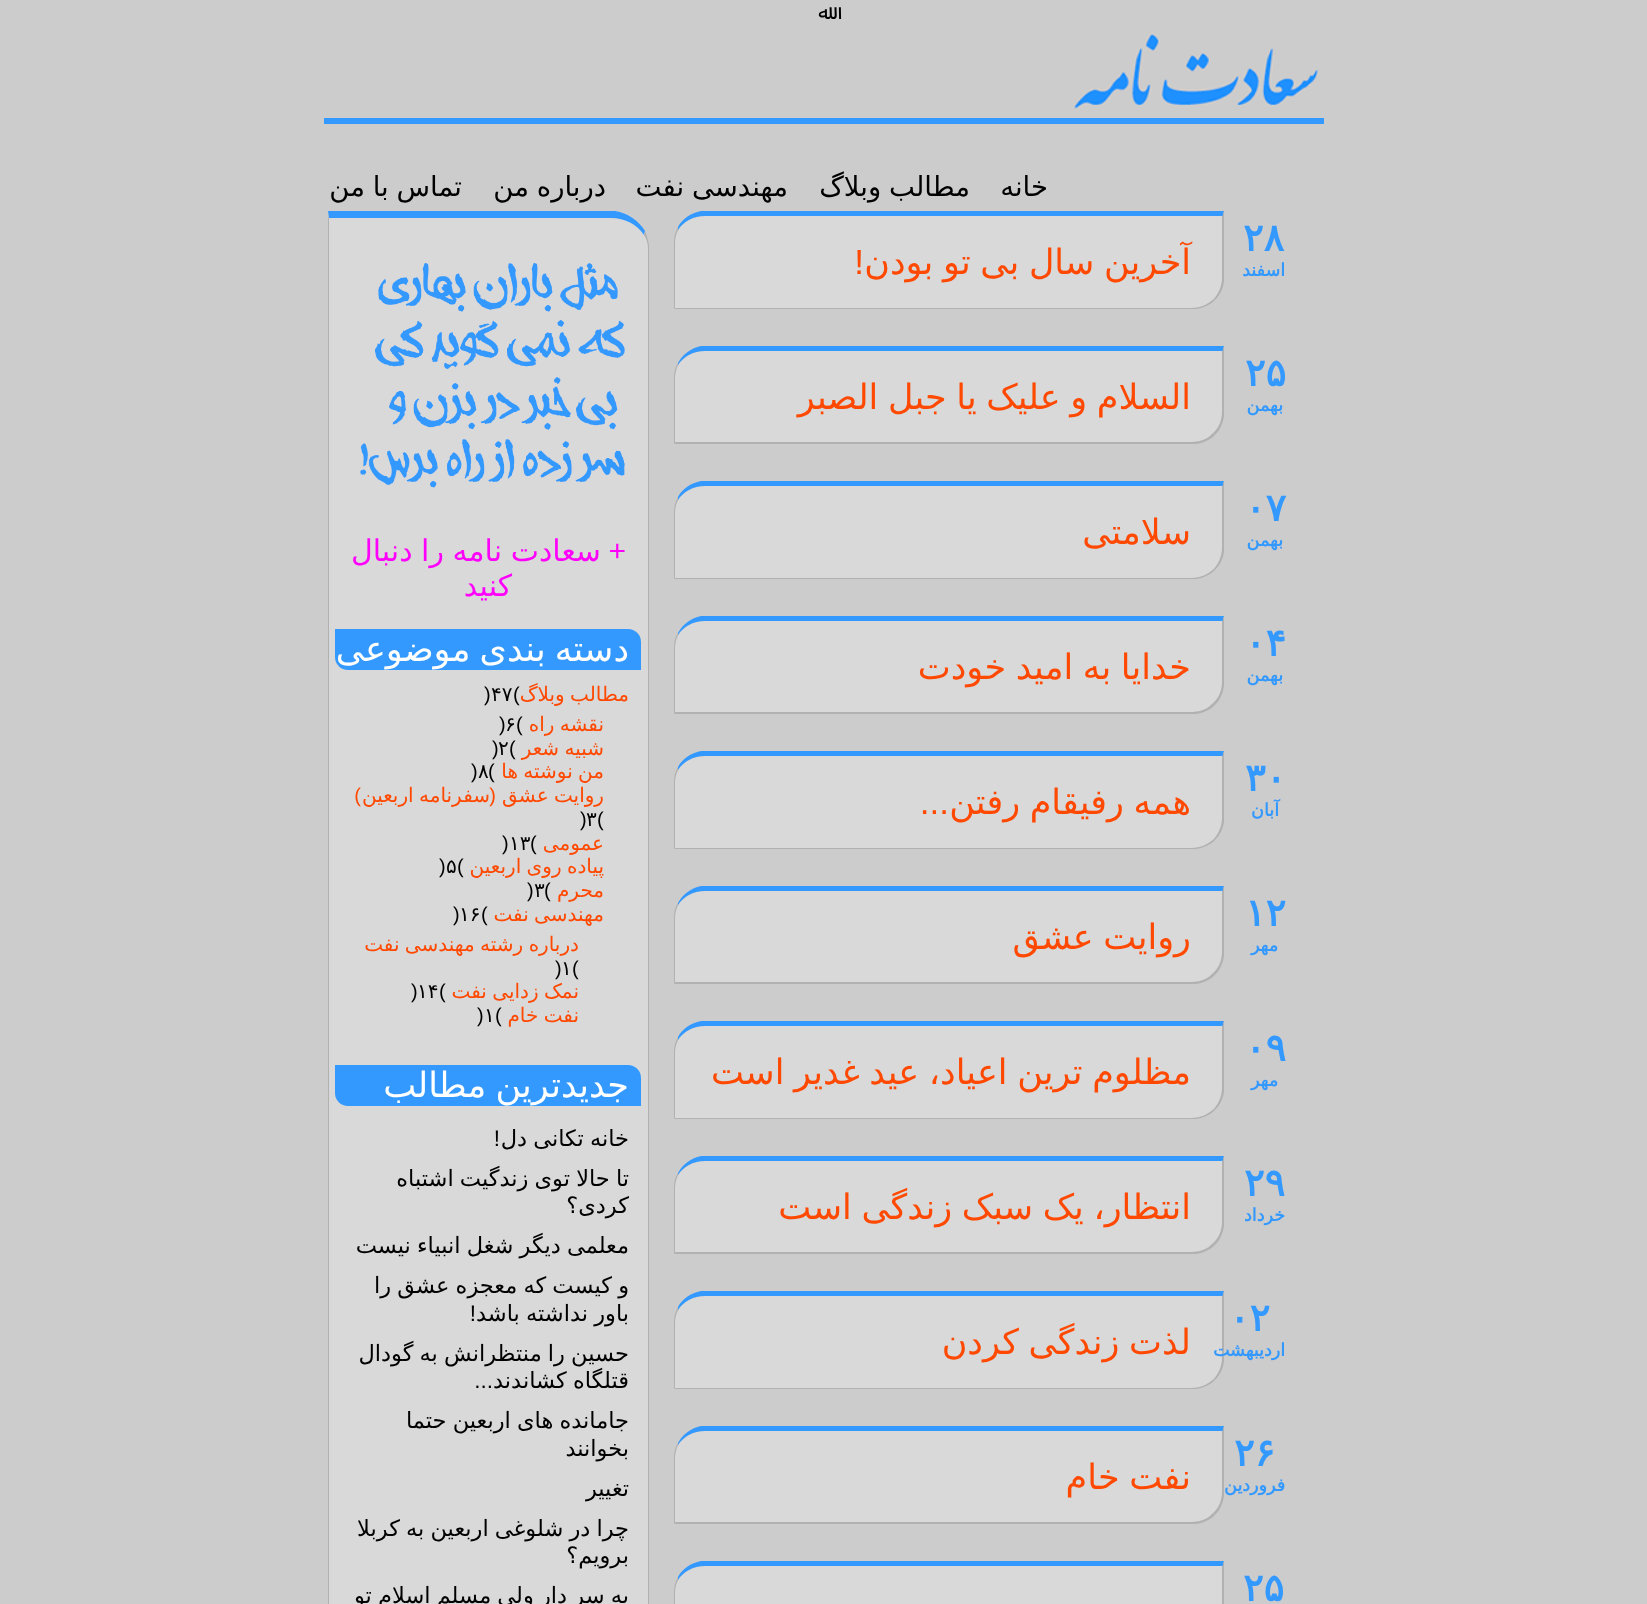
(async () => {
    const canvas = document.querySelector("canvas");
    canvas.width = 1647;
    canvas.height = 1604;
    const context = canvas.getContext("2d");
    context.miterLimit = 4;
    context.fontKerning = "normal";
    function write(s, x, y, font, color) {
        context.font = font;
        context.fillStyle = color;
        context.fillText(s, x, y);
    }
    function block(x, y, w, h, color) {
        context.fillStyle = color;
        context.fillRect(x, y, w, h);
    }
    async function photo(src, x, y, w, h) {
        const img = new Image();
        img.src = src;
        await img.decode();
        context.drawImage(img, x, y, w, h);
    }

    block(0, 0, 1647, 1604, "rgb(204, 204, 204)");
    context.direction = "rtl";
    write("ﷲ", 830, 19, "20px Cascadia Code", "rgb(0, 0, 0)");
    block(324, 118, 1000, 6, "rgb(51, 153, 255)");
    await photo("media/1.png", 1074, 32, 245, 78);
    write("خانه", 1048, 196, "27.5px DejaVu Sans", "rgb(0, 0, 0)");
    context.wordSpacing = "-1px";
    write("مطالب وبلاگ", 970, 196, "27.5px DejaVu Sans", "rgb(0, 0, 0)");
    write("مهندسی نفت", 788, 196, "27.5px DejaVu Sans", "rgb(0, 0, 0)");
    write("درباره من", 606, 196, "27.5px DejaVu Sans", "rgb(0, 0, 0)");
    write("تماس با من", 462, 196, "27.5px DejaVu Sans", "rgb(0, 0, 0)");
    context.fillStyle = "rgb(217, 217, 217)";
    context.beginPath();
    context.moveTo(705, 216);
    context.lineTo(1222, 216);
    context.lineTo(1222, 278);
    context.bezierCurveTo(1222, 294, 1209, 308, 1192, 308);
    context.lineTo(675, 308);
    context.lineTo(675, 242);
    context.bezierCurveTo(675, 228, 688, 216, 705, 216);
    context.closePath();
    context.fill();
    context.fillStyle = "rgb(51, 153, 255)";
    context.beginPath();
    context.moveTo(705, 216);
    context.bezierCurveTo(693, 216, 683, 222, 678, 230);
    context.lineTo(678, 227);
    context.bezierCurveTo(682, 219, 691, 213, 701, 211);
    context.lineTo(1224, 211);
    context.lineTo(1222, 218);
    context.lineTo(1222, 216);
    context.closePath();
    context.fill();
    context.fillStyle = "rgb(177, 177, 177)";
    context.beginPath();
    context.moveTo(1224, 211);
    context.lineTo(1224, 282);
    context.bezierCurveTo(1223, 289, 1220, 295, 1215, 300);
    context.lineTo(1214, 299);
    context.bezierCurveTo(1219, 293, 1222, 286, 1222, 278);
    context.lineTo(1222, 218);
    context.closePath();
    context.fill();
    context.beginPath();
    context.moveTo(674, 309);
    context.lineTo(675, 308);
    context.lineTo(1192, 308);
    context.bezierCurveTo(1201, 308, 1208, 304, 1214, 299);
    context.lineTo(1215, 300);
    context.bezierCurveTo(1210, 305, 1203, 308, 1196, 309);
    context.closePath();
    context.fill();
    context.beginPath();
    context.moveTo(674, 308);
    context.lineTo(674, 242);
    context.bezierCurveTo(674, 237, 675, 232, 678, 227);
    context.lineTo(678, 230);
    context.bezierCurveTo(676, 234, 675, 238, 675, 242);
    context.lineTo(675, 308);
    context.closePath();
    context.fill();
    context.wordSpacing = "0px";
    context.direction = "ltr";
    write("۲۸", 1243, 251, "bold 38px DejaVu Sans", "rgb(51, 153, 255)");
    context.direction = "rtl";
    write("اسفند", 1285, 276, "bold 17.5px DejaVu Sans", "rgb(51, 153, 255)");
    context.wordSpacing = "-1.5px";
    write("آخرین سال بی تو بودن", 1191, 274, "35px DejaVu Sans", "rgb(255, 72, 0)");
    context.wordSpacing = "0px";
    write("!", 864, 274, "35px Liberation Sans", "rgb(255, 72, 0)");
    context.fillStyle = "rgb(217, 217, 217)";
    context.beginPath();
    context.moveTo(705, 351);
    context.lineTo(1222, 351);
    context.lineTo(1222, 412);
    context.bezierCurveTo(1222, 429, 1209, 442, 1192, 442);
    context.lineTo(675, 442);
    context.lineTo(675, 378);
    context.bezierCurveTo(675, 363, 688, 351, 705, 351);
    context.closePath();
    context.fill();
    context.fillStyle = "rgb(51, 153, 255)";
    context.beginPath();
    context.moveTo(705, 351);
    context.bezierCurveTo(693, 351, 683, 357, 678, 365);
    context.lineTo(678, 363);
    context.bezierCurveTo(683, 354, 691, 348, 701, 346);
    context.lineTo(1224, 346);
    context.lineTo(1222, 353);
    context.lineTo(1222, 351);
    context.closePath();
    context.fill();
    context.fillStyle = "rgb(177, 177, 177)";
    context.beginPath();
    context.moveTo(1224, 346);
    context.lineTo(1224, 416);
    context.bezierCurveTo(1223, 423, 1220, 430, 1215, 435);
    context.lineTo(1213, 433);
    context.bezierCurveTo(1219, 428, 1222, 420, 1222, 412);
    context.lineTo(1222, 353);
    context.closePath();
    context.fill();
    context.beginPath();
    context.moveTo(674, 444);
    context.lineTo(676, 442);
    context.lineTo(1192, 442);
    context.bezierCurveTo(1200, 442, 1208, 439, 1213, 433);
    context.lineTo(1215, 435);
    context.bezierCurveTo(1210, 440, 1203, 443, 1196, 444);
    context.closePath();
    context.fill();
    context.beginPath();
    context.moveTo(674, 444);
    context.lineTo(674, 378);
    context.bezierCurveTo(674, 372, 675, 367, 678, 363);
    context.lineTo(678, 365);
    context.bezierCurveTo(676, 369, 675, 373, 675, 378);
    context.lineTo(675, 442);
    context.lineTo(676, 442);
    context.closePath();
    context.fill();
    context.direction = "ltr";
    write("۲۵", 1245, 386, "bold 38px DejaVu Sans", "rgb(51, 153, 255)");
    context.direction = "rtl";
    write("بهمن", 1283, 411, "bold 17.5px DejaVu Sans", "rgb(51, 153, 255)");
    context.wordSpacing = "-1.5px";
    write("السلام و علیک یا جبل الصبر", 1191, 409, "35px DejaVu Sans", "rgb(255, 72, 0)");
    context.fillStyle = "rgb(217, 217, 217)";
    context.beginPath();
    context.moveTo(705, 486);
    context.lineTo(1222, 486);
    context.lineTo(1222, 548);
    context.bezierCurveTo(1222, 564, 1209, 578, 1192, 578);
    context.lineTo(675, 578);
    context.lineTo(675, 512);
    context.bezierCurveTo(675, 498, 688, 486, 705, 486);
    context.closePath();
    context.fill();
    context.fillStyle = "rgb(51, 153, 255)";
    context.beginPath();
    context.moveTo(705, 486);
    context.bezierCurveTo(693, 486, 683, 492, 678, 500);
    context.lineTo(678, 497);
    context.bezierCurveTo(682, 489, 691, 483, 701, 481);
    context.lineTo(1224, 481);
    context.lineTo(1222, 488);
    context.lineTo(1222, 486);
    context.closePath();
    context.fill();
    context.fillStyle = "rgb(177, 177, 177)";
    context.beginPath();
    context.moveTo(1224, 481);
    context.lineTo(1224, 552);
    context.bezierCurveTo(1223, 559, 1220, 565, 1215, 570);
    context.lineTo(1214, 569);
    context.bezierCurveTo(1219, 563, 1222, 556, 1222, 548);
    context.lineTo(1222, 488);
    context.closePath();
    context.fill();
    context.beginPath();
    context.moveTo(674, 579);
    context.lineTo(675, 578);
    context.lineTo(1192, 578);
    context.bezierCurveTo(1201, 578, 1208, 574, 1214, 569);
    context.lineTo(1215, 570);
    context.bezierCurveTo(1210, 575, 1203, 578, 1196, 579);
    context.closePath();
    context.fill();
    context.beginPath();
    context.moveTo(674, 578);
    context.lineTo(674, 512);
    context.bezierCurveTo(674, 507, 675, 502, 678, 497);
    context.lineTo(678, 500);
    context.bezierCurveTo(676, 504, 675, 508, 675, 512);
    context.lineTo(675, 578);
    context.closePath();
    context.fill();
    context.wordSpacing = "0px";
    context.direction = "ltr";
    write("۰۷", 1245, 521, "bold 38px DejaVu Sans", "rgb(51, 153, 255)");
    context.direction = "rtl";
    write("بهمن", 1283, 546, "bold 17.5px DejaVu Sans", "rgb(51, 153, 255)");
    write("سلامتی", 1191, 544, "35px DejaVu Sans", "rgb(255, 72, 0)");
    context.fillStyle = "rgb(217, 217, 217)";
    context.beginPath();
    context.moveTo(705, 621);
    context.lineTo(1222, 621);
    context.lineTo(1222, 682);
    context.bezierCurveTo(1222, 699, 1209, 712, 1192, 712);
    context.lineTo(675, 712);
    context.lineTo(675, 648);
    context.bezierCurveTo(675, 633, 688, 621, 705, 621);
    context.closePath();
    context.fill();
    context.fillStyle = "rgb(51, 153, 255)";
    context.beginPath();
    context.moveTo(705, 621);
    context.bezierCurveTo(693, 621, 683, 627, 678, 635);
    context.lineTo(678, 633);
    context.bezierCurveTo(683, 624, 691, 618, 701, 616);
    context.lineTo(1224, 616);
    context.lineTo(1222, 623);
    context.lineTo(1222, 621);
    context.closePath();
    context.fill();
    context.fillStyle = "rgb(177, 177, 177)";
    context.beginPath();
    context.moveTo(1224, 616);
    context.lineTo(1224, 686);
    context.bezierCurveTo(1223, 693, 1220, 700, 1215, 705);
    context.lineTo(1213, 703);
    context.bezierCurveTo(1219, 698, 1222, 690, 1222, 682);
    context.lineTo(1222, 623);
    context.closePath();
    context.fill();
    context.beginPath();
    context.moveTo(674, 714);
    context.lineTo(676, 712);
    context.lineTo(1192, 712);
    context.bezierCurveTo(1200, 712, 1208, 709, 1213, 703);
    context.lineTo(1215, 705);
    context.bezierCurveTo(1210, 710, 1203, 713, 1196, 714);
    context.closePath();
    context.fill();
    context.beginPath();
    context.moveTo(674, 714);
    context.lineTo(674, 648);
    context.bezierCurveTo(674, 642, 675, 637, 678, 633);
    context.lineTo(678, 635);
    context.bezierCurveTo(676, 639, 675, 643, 675, 648);
    context.lineTo(675, 712);
    context.lineTo(676, 712);
    context.closePath();
    context.fill();
    context.direction = "ltr";
    write("۰۴", 1245, 656, "bold 38px DejaVu Sans", "rgb(51, 153, 255)");
    context.direction = "rtl";
    write("بهمن", 1283, 681, "bold 17.5px DejaVu Sans", "rgb(51, 153, 255)");
    context.wordSpacing = "-1.5px";
    write("خدایا به امید خودت", 1191, 679, "35px DejaVu Sans", "rgb(255, 72, 0)");
    context.fillStyle = "rgb(217, 217, 217)";
    context.beginPath();
    context.moveTo(705, 756);
    context.lineTo(1222, 756);
    context.lineTo(1222, 818);
    context.bezierCurveTo(1222, 834, 1209, 848, 1192, 848);
    context.lineTo(675, 848);
    context.lineTo(675, 782);
    context.bezierCurveTo(675, 768, 688, 756, 705, 756);
    context.closePath();
    context.fill();
    context.fillStyle = "rgb(51, 153, 255)";
    context.beginPath();
    context.moveTo(705, 756);
    context.bezierCurveTo(693, 756, 683, 762, 678, 770);
    context.lineTo(678, 767);
    context.bezierCurveTo(682, 759, 691, 753, 701, 751);
    context.lineTo(1224, 751);
    context.lineTo(1222, 758);
    context.lineTo(1222, 756);
    context.closePath();
    context.fill();
    context.fillStyle = "rgb(177, 177, 177)";
    context.beginPath();
    context.moveTo(1224, 751);
    context.lineTo(1224, 822);
    context.bezierCurveTo(1223, 829, 1220, 835, 1215, 840);
    context.lineTo(1214, 839);
    context.bezierCurveTo(1219, 833, 1222, 826, 1222, 818);
    context.lineTo(1222, 758);
    context.closePath();
    context.fill();
    context.beginPath();
    context.moveTo(674, 849);
    context.lineTo(675, 848);
    context.lineTo(1192, 848);
    context.bezierCurveTo(1201, 848, 1208, 844, 1214, 839);
    context.lineTo(1215, 840);
    context.bezierCurveTo(1210, 845, 1203, 848, 1196, 849);
    context.closePath();
    context.fill();
    context.beginPath();
    context.moveTo(674, 848);
    context.lineTo(674, 782);
    context.bezierCurveTo(674, 777, 675, 772, 678, 767);
    context.lineTo(678, 770);
    context.bezierCurveTo(676, 774, 675, 778, 675, 782);
    context.lineTo(675, 848);
    context.closePath();
    context.fill();
    context.wordSpacing = "0px";
    context.direction = "ltr";
    write("۳۰", 1245, 791, "bold 38px DejaVu Sans", "rgb(51, 153, 255)");
    context.direction = "rtl";
    write("آبان", 1279, 816, "bold 17.5px DejaVu Sans", "rgb(51, 153, 255)");
    context.wordSpacing = "-1.5px";
    write("همه رفیقام رفتن", 1191, 814, "35px DejaVu Sans", "rgb(255, 72, 0)");
    context.wordSpacing = "0px";
    write("...", 949, 814, "35px Liberation Sans", "rgb(255, 72, 0)");
    context.fillStyle = "rgb(217, 217, 217)";
    context.beginPath();
    context.moveTo(705, 891);
    context.lineTo(1222, 891);
    context.lineTo(1222, 952);
    context.bezierCurveTo(1222, 969, 1209, 982, 1192, 982);
    context.lineTo(675, 982);
    context.lineTo(675, 918);
    context.bezierCurveTo(675, 903, 688, 891, 705, 891);
    context.closePath();
    context.fill();
    context.fillStyle = "rgb(51, 153, 255)";
    context.beginPath();
    context.moveTo(705, 891);
    context.bezierCurveTo(693, 891, 683, 897, 678, 905);
    context.lineTo(678, 903);
    context.bezierCurveTo(683, 894, 691, 888, 701, 886);
    context.lineTo(1224, 886);
    context.lineTo(1222, 893);
    context.lineTo(1222, 891);
    context.closePath();
    context.fill();
    context.fillStyle = "rgb(177, 177, 177)";
    context.beginPath();
    context.moveTo(1224, 886);
    context.lineTo(1224, 956);
    context.bezierCurveTo(1223, 963, 1220, 970, 1215, 975);
    context.lineTo(1213, 973);
    context.bezierCurveTo(1219, 968, 1222, 960, 1222, 952);
    context.lineTo(1222, 893);
    context.closePath();
    context.fill();
    context.beginPath();
    context.moveTo(674, 984);
    context.lineTo(676, 982);
    context.lineTo(1192, 982);
    context.bezierCurveTo(1200, 982, 1208, 979, 1213, 973);
    context.lineTo(1215, 975);
    context.bezierCurveTo(1210, 980, 1203, 983, 1196, 984);
    context.closePath();
    context.fill();
    context.beginPath();
    context.moveTo(674, 984);
    context.lineTo(674, 918);
    context.bezierCurveTo(674, 912, 675, 907, 678, 903);
    context.lineTo(678, 905);
    context.bezierCurveTo(676, 909, 675, 913, 675, 918);
    context.lineTo(675, 982);
    context.lineTo(676, 982);
    context.closePath();
    context.fill();
    context.direction = "ltr";
    write("۱۲", 1245, 926, "bold 38px DejaVu Sans", "rgb(51, 153, 255)");
    context.direction = "rtl";
    write("مهر", 1278, 951, "bold 17.5px DejaVu Sans", "rgb(51, 153, 255)");
    context.wordSpacing = "-1.5px";
    write("روایت عشق", 1191, 949, "35px DejaVu Sans", "rgb(255, 72, 0)");
    context.fillStyle = "rgb(217, 217, 217)";
    context.beginPath();
    context.moveTo(705, 1026);
    context.lineTo(1222, 1026);
    context.lineTo(1222, 1088);
    context.bezierCurveTo(1222, 1104, 1209, 1118, 1192, 1118);
    context.lineTo(675, 1118);
    context.lineTo(675, 1052);
    context.bezierCurveTo(675, 1038, 688, 1026, 705, 1026);
    context.closePath();
    context.fill();
    context.fillStyle = "rgb(51, 153, 255)";
    context.beginPath();
    context.moveTo(705, 1026);
    context.bezierCurveTo(693, 1026, 683, 1032, 678, 1040);
    context.lineTo(678, 1037);
    context.bezierCurveTo(682, 1029, 691, 1023, 701, 1021);
    context.lineTo(1224, 1021);
    context.lineTo(1222, 1028);
    context.lineTo(1222, 1026);
    context.closePath();
    context.fill();
    context.fillStyle = "rgb(177, 177, 177)";
    context.beginPath();
    context.moveTo(1224, 1021);
    context.lineTo(1224, 1092);
    context.bezierCurveTo(1223, 1099, 1220, 1105, 1215, 1110);
    context.lineTo(1214, 1109);
    context.bezierCurveTo(1219, 1103, 1222, 1096, 1222, 1088);
    context.lineTo(1222, 1028);
    context.closePath();
    context.fill();
    context.beginPath();
    context.moveTo(674, 1119);
    context.lineTo(675, 1118);
    context.lineTo(1192, 1118);
    context.bezierCurveTo(1201, 1118, 1208, 1114, 1214, 1109);
    context.lineTo(1215, 1110);
    context.bezierCurveTo(1210, 1115, 1203, 1118, 1196, 1119);
    context.closePath();
    context.fill();
    context.beginPath();
    context.moveTo(674, 1118);
    context.lineTo(674, 1052);
    context.bezierCurveTo(674, 1047, 675, 1042, 678, 1037);
    context.lineTo(678, 1040);
    context.bezierCurveTo(676, 1044, 675, 1048, 675, 1052);
    context.lineTo(675, 1118);
    context.closePath();
    context.fill();
    context.wordSpacing = "0px";
    context.direction = "ltr";
    write("۰۹", 1245, 1061, "bold 38px DejaVu Sans", "rgb(51, 153, 255)");
    context.direction = "rtl";
    write("مهر", 1278, 1086, "bold 17.5px DejaVu Sans", "rgb(51, 153, 255)");
    context.wordSpacing = "-1.5px";
    write("مظلوم ترین اعیاد، عید غدیر است", 1191, 1084, "35px DejaVu Sans", "rgb(255, 72, 0)");
    context.fillStyle = "rgb(217, 217, 217)";
    context.beginPath();
    context.moveTo(705, 1161);
    context.lineTo(1222, 1161);
    context.lineTo(1222, 1222);
    context.bezierCurveTo(1222, 1239, 1209, 1252, 1192, 1252);
    context.lineTo(675, 1252);
    context.lineTo(675, 1188);
    context.bezierCurveTo(675, 1173, 688, 1161, 705, 1161);
    context.closePath();
    context.fill();
    context.fillStyle = "rgb(51, 153, 255)";
    context.beginPath();
    context.moveTo(705, 1161);
    context.bezierCurveTo(693, 1161, 683, 1167, 678, 1175);
    context.lineTo(678, 1173);
    context.bezierCurveTo(683, 1164, 691, 1158, 701, 1156);
    context.lineTo(1224, 1156);
    context.lineTo(1222, 1163);
    context.lineTo(1222, 1161);
    context.closePath();
    context.fill();
    context.fillStyle = "rgb(177, 177, 177)";
    context.beginPath();
    context.moveTo(1224, 1156);
    context.lineTo(1224, 1226);
    context.bezierCurveTo(1223, 1233, 1220, 1240, 1215, 1245);
    context.lineTo(1213, 1243);
    context.bezierCurveTo(1219, 1238, 1222, 1230, 1222, 1222);
    context.lineTo(1222, 1163);
    context.closePath();
    context.fill();
    context.beginPath();
    context.moveTo(674, 1254);
    context.lineTo(676, 1252);
    context.lineTo(1192, 1252);
    context.bezierCurveTo(1200, 1252, 1208, 1249, 1213, 1243);
    context.lineTo(1215, 1245);
    context.bezierCurveTo(1210, 1250, 1203, 1253, 1196, 1254);
    context.closePath();
    context.fill();
    context.beginPath();
    context.moveTo(674, 1254);
    context.lineTo(674, 1188);
    context.bezierCurveTo(674, 1182, 675, 1177, 678, 1173);
    context.lineTo(678, 1175);
    context.bezierCurveTo(676, 1179, 675, 1183, 675, 1188);
    context.lineTo(675, 1252);
    context.lineTo(676, 1252);
    context.closePath();
    context.fill();
    context.wordSpacing = "0px";
    context.direction = "ltr";
    write("۲۹", 1244, 1196, "bold 38px DejaVu Sans", "rgb(51, 153, 255)");
    context.direction = "rtl";
    write("خرداد", 1285, 1221, "bold 17.5px DejaVu Sans", "rgb(51, 153, 255)");
    context.wordSpacing = "-1.5px";
    write("انتظار، یک سبک زندگی است", 1191, 1219, "35px DejaVu Sans", "rgb(255, 72, 0)");
    context.fillStyle = "rgb(217, 217, 217)";
    context.beginPath();
    context.moveTo(705, 1296);
    context.lineTo(1222, 1296);
    context.lineTo(1222, 1358);
    context.bezierCurveTo(1222, 1374, 1209, 1388, 1192, 1388);
    context.lineTo(675, 1388);
    context.lineTo(675, 1322);
    context.bezierCurveTo(675, 1308, 688, 1296, 705, 1296);
    context.closePath();
    context.fill();
    context.fillStyle = "rgb(51, 153, 255)";
    context.beginPath();
    context.moveTo(705, 1296);
    context.bezierCurveTo(693, 1296, 683, 1302, 678, 1310);
    context.lineTo(678, 1307);
    context.bezierCurveTo(682, 1299, 691, 1293, 701, 1291);
    context.lineTo(1224, 1291);
    context.lineTo(1222, 1298);
    context.lineTo(1222, 1296);
    context.closePath();
    context.fill();
    context.fillStyle = "rgb(177, 177, 177)";
    context.beginPath();
    context.moveTo(1224, 1291);
    context.lineTo(1224, 1362);
    context.bezierCurveTo(1223, 1369, 1220, 1375, 1215, 1380);
    context.lineTo(1214, 1379);
    context.bezierCurveTo(1219, 1373, 1222, 1366, 1222, 1358);
    context.lineTo(1222, 1298);
    context.closePath();
    context.fill();
    context.beginPath();
    context.moveTo(674, 1389);
    context.lineTo(675, 1388);
    context.lineTo(1192, 1388);
    context.bezierCurveTo(1201, 1388, 1208, 1384, 1214, 1379);
    context.lineTo(1215, 1380);
    context.bezierCurveTo(1210, 1385, 1203, 1388, 1196, 1389);
    context.closePath();
    context.fill();
    context.beginPath();
    context.moveTo(674, 1388);
    context.lineTo(674, 1322);
    context.bezierCurveTo(674, 1317, 675, 1312, 678, 1307);
    context.lineTo(678, 1310);
    context.bezierCurveTo(676, 1314, 675, 1318, 675, 1322);
    context.lineTo(675, 1388);
    context.closePath();
    context.fill();
    context.wordSpacing = "0px";
    context.direction = "ltr";
    write("۰۲", 1229, 1331, "bold 38px DejaVu Sans", "rgb(51, 153, 255)");
    context.direction = "rtl";
    write("ارديبهشت", 1285, 1356, "bold 17.5px DejaVu Sans", "rgb(51, 153, 255)");
    context.wordSpacing = "-1.5px";
    write("لذت زندگی کردن", 1191, 1354, "35px DejaVu Sans", "rgb(255, 72, 0)");
    context.fillStyle = "rgb(217, 217, 217)";
    context.beginPath();
    context.moveTo(705, 1431);
    context.lineTo(1222, 1431);
    context.lineTo(1222, 1492);
    context.bezierCurveTo(1222, 1509, 1209, 1522, 1192, 1522);
    context.lineTo(675, 1522);
    context.lineTo(675, 1458);
    context.bezierCurveTo(675, 1443, 688, 1431, 705, 1431);
    context.closePath();
    context.fill();
    context.fillStyle = "rgb(51, 153, 255)";
    context.beginPath();
    context.moveTo(705, 1431);
    context.bezierCurveTo(693, 1431, 683, 1437, 678, 1445);
    context.lineTo(678, 1443);
    context.bezierCurveTo(683, 1434, 691, 1428, 701, 1426);
    context.lineTo(1224, 1426);
    context.lineTo(1222, 1433);
    context.lineTo(1222, 1431);
    context.closePath();
    context.fill();
    context.fillStyle = "rgb(177, 177, 177)";
    context.beginPath();
    context.moveTo(1224, 1426);
    context.lineTo(1224, 1496);
    context.bezierCurveTo(1223, 1503, 1220, 1510, 1215, 1515);
    context.lineTo(1213, 1513);
    context.bezierCurveTo(1219, 1508, 1222, 1500, 1222, 1492);
    context.lineTo(1222, 1433);
    context.closePath();
    context.fill();
    context.beginPath();
    context.moveTo(674, 1524);
    context.lineTo(676, 1522);
    context.lineTo(1192, 1522);
    context.bezierCurveTo(1200, 1522, 1208, 1519, 1213, 1513);
    context.lineTo(1215, 1515);
    context.bezierCurveTo(1210, 1520, 1203, 1523, 1196, 1524);
    context.closePath();
    context.fill();
    context.beginPath();
    context.moveTo(674, 1524);
    context.lineTo(674, 1458);
    context.bezierCurveTo(674, 1452, 675, 1447, 678, 1443);
    context.lineTo(678, 1445);
    context.bezierCurveTo(676, 1449, 675, 1453, 675, 1458);
    context.lineTo(675, 1522);
    context.lineTo(676, 1522);
    context.closePath();
    context.fill();
    context.wordSpacing = "0px";
    context.direction = "ltr";
    write("۲۶", 1234, 1466, "bold 38px DejaVu Sans", "rgb(51, 153, 255)");
    context.direction = "rtl";
    write("فروردين", 1285, 1491, "bold 17.5px DejaVu Sans", "rgb(51, 153, 255)");
    context.wordSpacing = "-1.5px";
    write("نفت خام", 1191, 1489, "35px DejaVu Sans", "rgb(255, 72, 0)");
    context.fillStyle = "rgb(217, 217, 217)";
    context.beginPath();
    context.moveTo(705, 1566);
    context.lineTo(1222, 1566);
    context.lineTo(1222, 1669);
    context.bezierCurveTo(1222, 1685, 1209, 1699, 1192, 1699);
    context.lineTo(675, 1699);
    context.lineTo(675, 1592);
    context.bezierCurveTo(675, 1578, 688, 1566, 705, 1566);
    context.closePath();
    context.fill();
    context.fillStyle = "rgb(51, 153, 255)";
    context.beginPath();
    context.moveTo(705, 1566);
    context.bezierCurveTo(693, 1566, 683, 1572, 678, 1580);
    context.lineTo(678, 1577);
    context.bezierCurveTo(682, 1569, 691, 1563, 701, 1561);
    context.lineTo(1224, 1561);
    context.lineTo(1222, 1568);
    context.lineTo(1222, 1566);
    context.closePath();
    context.fill();
    context.fillStyle = "rgb(177, 177, 177)";
    context.beginPath();
    context.moveTo(1224, 1561);
    context.lineTo(1224, 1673);
    context.bezierCurveTo(1223, 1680, 1220, 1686, 1215, 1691);
    context.lineTo(1214, 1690);
    context.bezierCurveTo(1219, 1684, 1222, 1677, 1222, 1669);
    context.lineTo(1222, 1568);
    context.closePath();
    context.fill();
    context.beginPath();
    context.moveTo(674, 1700);
    context.lineTo(674, 1592);
    context.bezierCurveTo(674, 1587, 675, 1582, 678, 1577);
    context.lineTo(678, 1580);
    context.bezierCurveTo(676, 1584, 675, 1588, 675, 1592);
    context.lineTo(675, 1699);
    context.closePath();
    context.fill();
    context.wordSpacing = "0px";
    context.direction = "ltr";
    write("۲۵", 1243, 1601, "bold 38px DejaVu Sans", "rgb(51, 153, 255)");
    context.fillStyle = "rgb(217, 217, 217)";
    context.beginPath();
    context.moveTo(328, 211);
    context.lineTo(611, 211);
    context.bezierCurveTo(632, 211, 649, 228, 649, 249);
    context.lineTo(649, 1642);
    context.lineTo(366, 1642);
    context.bezierCurveTo(345, 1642, 328, 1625, 328, 1604);
    context.closePath();
    context.fill();
    context.fillStyle = "rgb(51, 153, 255)";
    context.beginPath();
    context.moveTo(329, 218);
    context.lineTo(329, 219);
    context.lineTo(328, 211);
    context.lineTo(615, 211);
    context.bezierCurveTo(628, 213, 639, 221, 645, 231);
    context.lineTo(644, 235);
    context.bezierCurveTo(638, 225, 625, 218, 611, 218);
    context.closePath();
    context.fill();
    context.fillStyle = "rgb(177, 177, 177)";
    context.beginPath();
    context.moveTo(649, 245);
    context.lineTo(649, 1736);
    context.lineTo(648, 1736);
    context.lineTo(648, 249);
    context.bezierCurveTo(648, 244, 647, 239, 644, 235);
    context.lineTo(645, 231);
    context.bezierCurveTo(647, 235, 648, 240, 649, 245);
    context.closePath();
    context.fill();
    context.beginPath();
    context.moveTo(329, 219);
    context.lineTo(328, 214);
    context.lineTo(328, 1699);
    context.bezierCurveTo(328, 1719, 344, 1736, 365, 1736);
    context.bezierCurveTo(345, 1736, 329, 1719, 329, 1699);
    context.closePath();
    context.fill();
    await photo("media/2.png", 360, 263, 265, 225);
    context.direction = "rtl";
    write("+", 626, 561, "30px Liberation Sans", "rgb(255, 0, 252)");
    context.wordSpacing = "-1px";
    write("سعادت نامه را دنبال", 601, 561, "30px DejaVu Sans", "rgb(255, 0, 252)");
    context.wordSpacing = "0px";
    write("کنید", 512, 596, "30px DejaVu Sans", "rgb(255, 0, 252)");
    context.fillStyle = "rgb(51, 153, 255)";
    context.beginPath();
    context.roundRect(335, 629, 306, 41, [0, 13, 0, 13]);
    context.fill();
    context.wordSpacing = "-2px";
    write("دسته بندی موضوعی", 629, 661, "35px DejaVu Sans", "rgb(255, 255, 255)");
    context.wordSpacing = "-1px";
    write("مطالب وبلاگ", 629, 701, "20px DejaVu Sans", "rgb(255, 72, 0)");
    context.wordSpacing = "0px";
    context.direction = "ltr";
    write("(", 513, 701, "20px Liberation Sans", "rgb(0, 0, 0)");
    write("۴۷", 491, 701, "20px DejaVu Sans", "rgb(0, 0, 0)");
    write(")", 484, 701, "20px Liberation Sans", "rgb(0, 0, 0)");
    context.wordSpacing = "-1px";
    context.direction = "rtl";
    write("نقشه راه", 604, 731, "20px DejaVu Sans", "rgb(255, 72, 0)");
    context.wordSpacing = "0px";
    context.direction = "ltr";
    write("(", 516, 731, "20px Liberation Sans", "rgb(0, 0, 0)");
    write("۶", 505, 731, "20px DejaVu Sans", "rgb(0, 0, 0)");
    write(")", 499, 731, "20px Liberation Sans", "rgb(0, 0, 0)");
    context.wordSpacing = "-1px";
    context.direction = "rtl";
    write("شبیه شعر", 604, 755, "20px DejaVu Sans", "rgb(255, 72, 0)");
    context.wordSpacing = "0px";
    context.direction = "ltr";
    write("(", 509, 755, "20px Liberation Sans", "rgb(0, 0, 0)");
    write("۲", 498, 755, "20px DejaVu Sans", "rgb(0, 0, 0)");
    write(")", 492, 755, "20px Liberation Sans", "rgb(0, 0, 0)");
    context.wordSpacing = "-1px";
    context.direction = "rtl";
    write("من نوشته ها", 604, 778, "20px DejaVu Sans", "rgb(255, 72, 0)");
    context.wordSpacing = "0px";
    context.direction = "ltr";
    write("(", 488, 778, "20px Liberation Sans", "rgb(0, 0, 0)");
    write("۸", 478, 778, "20px DejaVu Sans", "rgb(0, 0, 0)");
    write(")", 471, 778, "20px Liberation Sans", "rgb(0, 0, 0)");
    context.wordSpacing = "-1px";
    context.direction = "rtl";
    write("روایت عشق", 604, 802, "20px DejaVu Sans", "rgb(255, 72, 0)");
    context.wordSpacing = "0px";
    write("(", 496, 802, "20px Liberation Sans", "rgb(255, 72, 0)");
    context.wordSpacing = "-1px";
    write("سفرنامه اربعین", 490, 802, "20px DejaVu Sans", "rgb(255, 72, 0)");
    context.wordSpacing = "0px";
    write(")", 361, 802, "20px Liberation Sans", "rgb(255, 72, 0)");
    context.direction = "ltr";
    write("(", 597, 826, "20px Liberation Sans", "rgb(0, 0, 0)");
    write("۳", 586, 826, "20px DejaVu Sans", "rgb(0, 0, 0)");
    write(")", 580, 826, "20px Liberation Sans", "rgb(0, 0, 0)");
    context.direction = "rtl";
    write("عمومی", 604, 850, "20px DejaVu Sans", "rgb(255, 72, 0)");
    context.direction = "ltr";
    write("(", 530, 850, "20px Liberation Sans", "rgb(0, 0, 0)");
    write("۱۳", 509, 850, "20px DejaVu Sans", "rgb(0, 0, 0)");
    write(")", 502, 850, "20px Liberation Sans", "rgb(0, 0, 0)");
    context.wordSpacing = "-1px";
    context.direction = "rtl";
    write("پیاده روی اربعین", 604, 873, "20px DejaVu Sans", "rgb(255, 72, 0)");
    context.wordSpacing = "0px";
    context.direction = "ltr";
    write("(", 457, 873, "20px Liberation Sans", "rgb(0, 0, 0)");
    write("۵", 446, 873, "20px DejaVu Sans", "rgb(0, 0, 0)");
    write(")", 439, 873, "20px Liberation Sans", "rgb(0, 0, 0)");
    context.direction = "rtl";
    write("محرم", 604, 897, "20px DejaVu Sans", "rgb(255, 72, 0)");
    context.direction = "ltr";
    write("(", 544, 897, "20px Liberation Sans", "rgb(0, 0, 0)");
    write("۳", 534, 897, "20px DejaVu Sans", "rgb(0, 0, 0)");
    write(")", 527, 897, "20px Liberation Sans", "rgb(0, 0, 0)");
    context.wordSpacing = "-1px";
    context.direction = "rtl";
    write("مهندسی نفت", 604, 921, "20px DejaVu Sans", "rgb(255, 72, 0)");
    context.wordSpacing = "0px";
    context.direction = "ltr";
    write("(", 481, 921, "20px Liberation Sans", "rgb(0, 0, 0)");
    write("۱۶", 459, 921, "20px DejaVu Sans", "rgb(0, 0, 0)");
    write(")", 453, 921, "20px Liberation Sans", "rgb(0, 0, 0)");
    context.wordSpacing = "-1px";
    context.direction = "rtl";
    write("درباره رشته مهندسی نفت", 579, 951, "20px DejaVu Sans", "rgb(255, 72, 0)");
    context.wordSpacing = "0px";
    context.direction = "ltr";
    write("(", 572, 975, "20px Liberation Sans", "rgb(0, 0, 0)");
    write("۱", 561, 975, "20px DejaVu Sans", "rgb(0, 0, 0)");
    write(")", 555, 975, "20px Liberation Sans", "rgb(0, 0, 0)");
    context.wordSpacing = "-1px";
    context.direction = "rtl";
    write("نمک زدایی نفت", 579, 998, "20px DejaVu Sans", "rgb(255, 72, 0)");
    context.wordSpacing = "0px";
    context.direction = "ltr";
    write("(", 439, 998, "20px Liberation Sans", "rgb(0, 0, 0)");
    write("۱۴", 417, 998, "20px DejaVu Sans", "rgb(0, 0, 0)");
    write(")", 411, 998, "20px Liberation Sans", "rgb(0, 0, 0)");
    context.wordSpacing = "-1px";
    context.direction = "rtl";
    write("نفت خام", 579, 1022, "20px DejaVu Sans", "rgb(255, 72, 0)");
    context.wordSpacing = "0px";
    context.direction = "ltr";
    write("(", 495, 1022, "20px Liberation Sans", "rgb(0, 0, 0)");
    write("۱", 484, 1022, "20px DejaVu Sans", "rgb(0, 0, 0)");
    write(")", 477, 1022, "20px Liberation Sans", "rgb(0, 0, 0)");
    context.fillStyle = "rgb(51, 153, 255)";
    context.beginPath();
    context.roundRect(335, 1065, 306, 41, [0, 13, 0, 13]);
    context.fill();
    context.wordSpacing = "-2px";
    context.direction = "rtl";
    write("جدیدترین مطالب", 629, 1097, "35px DejaVu Sans", "rgb(255, 255, 255)");
    context.wordSpacing = "-1px";
    write("خانه تکانی دل", 629, 1146, "22.5px DejaVu Sans", "rgb(0, 0, 0)");
    context.wordSpacing = "0px";
    write("!", 500, 1146, "22.5px Liberation Sans", "rgb(0, 0, 0)");
    context.wordSpacing = "-1px";
    write("تا حالا توی زندگیت اشتباه", 629, 1186, "22.5px DejaVu Sans", "rgb(0, 0, 0)");
    context.wordSpacing = "0px";
    write("کردی؟", 629, 1213, "22.5px DejaVu Sans", "rgb(0, 0, 0)");
    context.wordSpacing = "-1px";
    write("معلمی دیگر شغل انبیاء نیست", 629, 1253, "22.5px DejaVu Sans", "rgb(0, 0, 0)");
    write("و کیست که معجزه عشق را", 629, 1293, "22.5px DejaVu Sans", "rgb(0, 0, 0)");
    write("باور نداشته باشد", 629, 1321, "22.5px DejaVu Sans", "rgb(0, 0, 0)");
    context.wordSpacing = "0px";
    write("!", 476, 1321, "22.5px Liberation Sans", "rgb(0, 0, 0)");
    context.wordSpacing = "-1px";
    write("حسین را منتظرانش به گودال", 629, 1361, "22.5px DejaVu Sans", "rgb(0, 0, 0)");
    write("قتلگاه کشاندند", 629, 1388, "22.5px DejaVu Sans", "rgb(0, 0, 0)");
    context.wordSpacing = "0px";
    write("...", 493, 1388, "22.5px Liberation Sans", "rgb(0, 0, 0)");
    context.wordSpacing = "-1px";
    write("جامانده های اربعین حتما", 629, 1428, "22.5px DejaVu Sans", "rgb(0, 0, 0)");
    context.wordSpacing = "0px";
    write("بخوانند", 629, 1456, "22.5px DejaVu Sans", "rgb(0, 0, 0)");
    write("تغییر", 629, 1496, "22.5px DejaVu Sans", "rgb(0, 0, 0)");
    context.wordSpacing = "-1px";
    write("چرا در شلوغی اربعین به کربلا", 629, 1536, "22.5px DejaVu Sans", "rgb(0, 0, 0)");
    context.wordSpacing = "0px";
    write("برویم؟", 629, 1563, "22.5px DejaVu Sans", "rgb(0, 0, 0)");
    context.wordSpacing = "-1px";
    write("به سرِ دار ولی مسلمِ اسلام تو", 629, 1603, "22.5px DejaVu Sans", "rgb(0, 0, 0)");
})();
